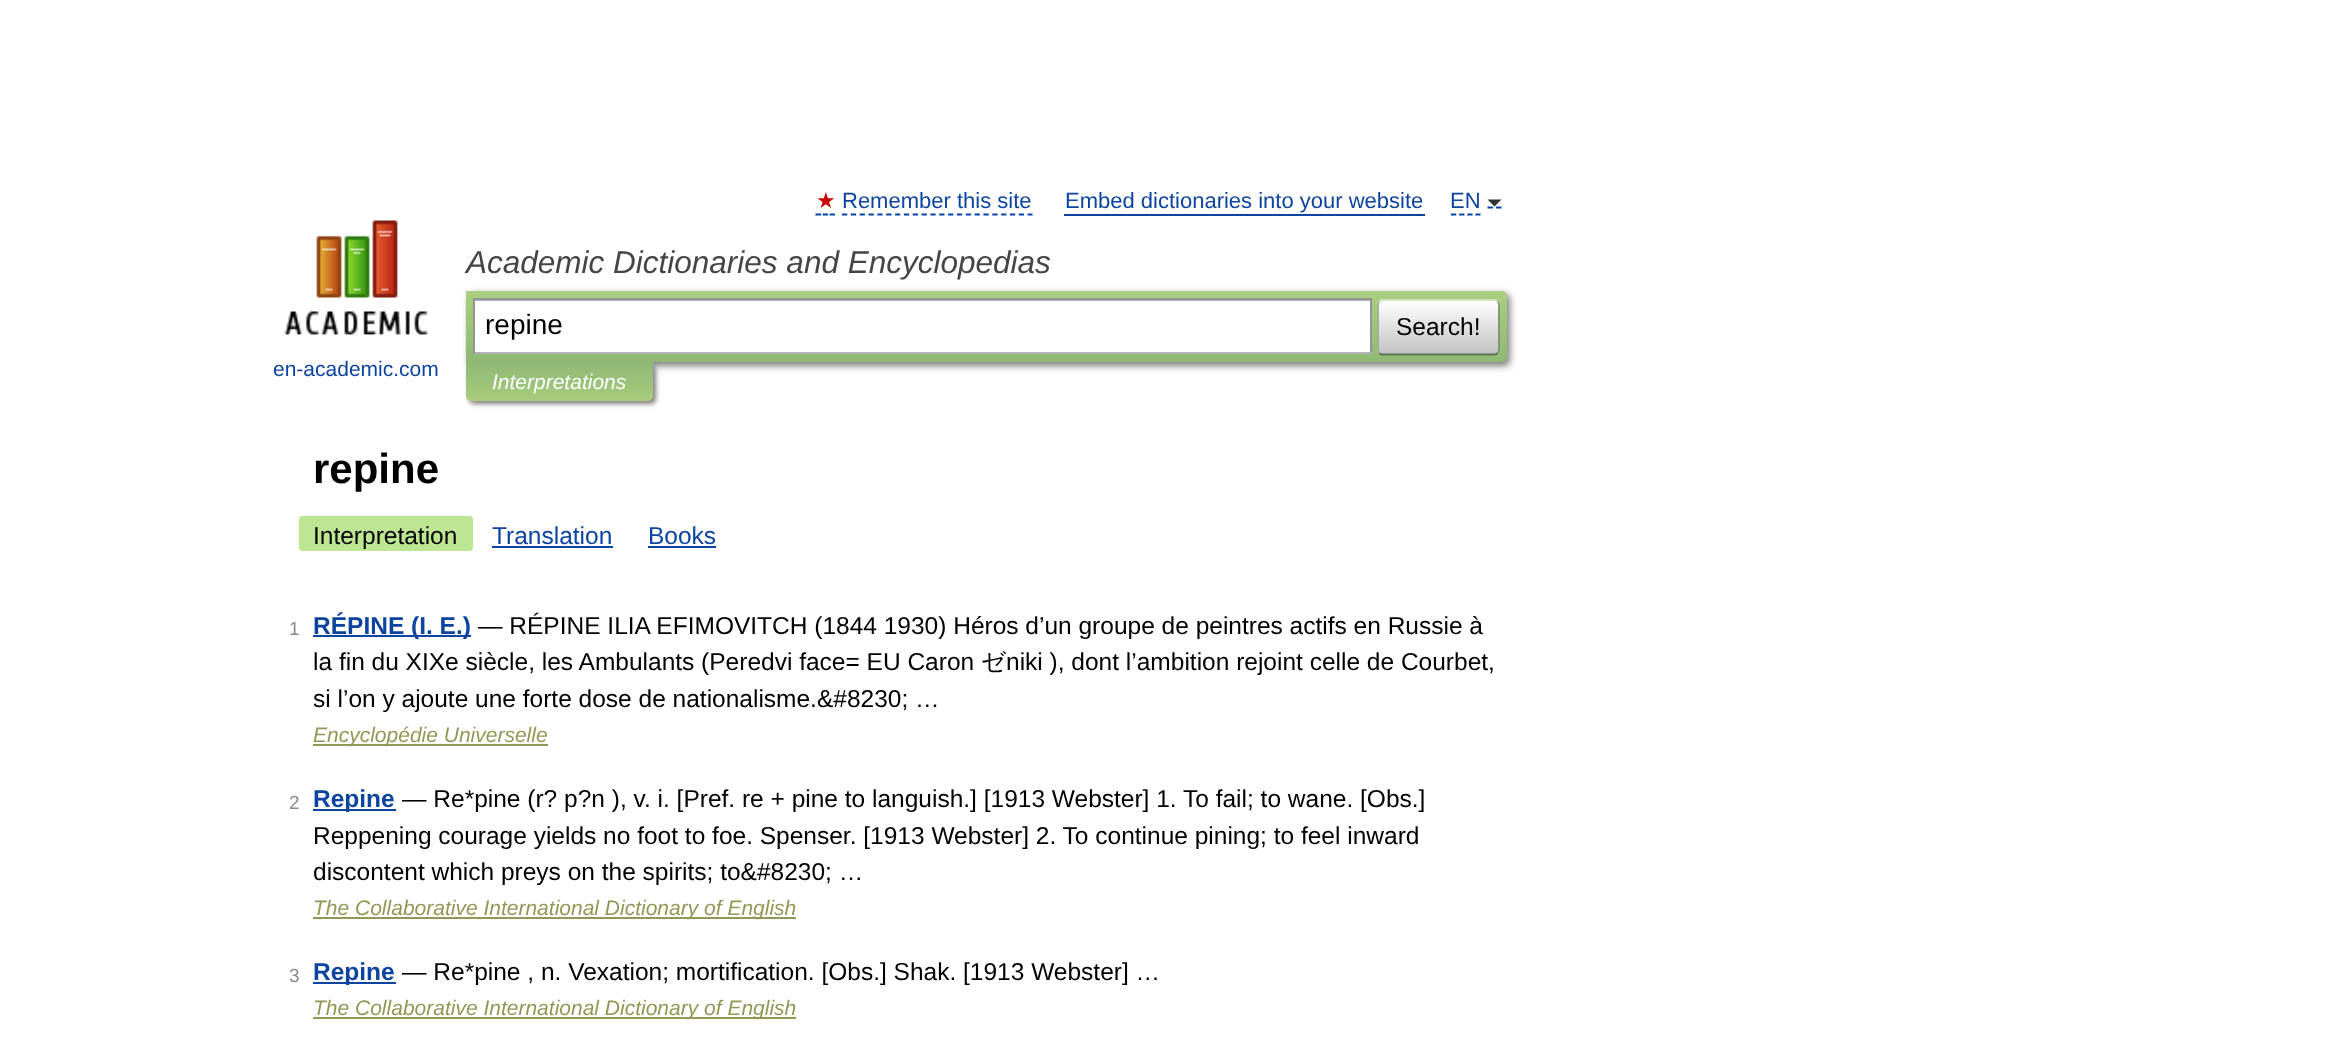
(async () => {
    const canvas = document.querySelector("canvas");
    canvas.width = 2331;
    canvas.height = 1048;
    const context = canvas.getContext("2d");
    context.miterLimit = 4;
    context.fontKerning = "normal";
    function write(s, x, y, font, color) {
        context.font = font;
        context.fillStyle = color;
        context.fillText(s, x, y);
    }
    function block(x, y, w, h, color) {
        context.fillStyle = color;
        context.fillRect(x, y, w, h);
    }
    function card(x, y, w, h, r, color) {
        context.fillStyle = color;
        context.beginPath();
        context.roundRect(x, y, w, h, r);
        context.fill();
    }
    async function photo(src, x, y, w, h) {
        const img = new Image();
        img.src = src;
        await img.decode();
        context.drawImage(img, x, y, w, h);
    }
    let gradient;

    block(0, 0, 2331, 1048, "rgb(255, 255, 255)");
    write("★", 816, 208, "22px DejaVu Sans", "rgb(204, 0, 0)");
    context.beginPath();
    context.moveTo(815.5, 214.5);
    context.lineTo(821, 214.5);
    context.moveTo(822.5, 214.5);
    context.lineTo(828, 214.5);
    context.moveTo(829.5, 214.5);
    context.lineTo(835, 214.5);
    context.strokeStyle = "rgb(0, 68, 170)";
    context.lineWidth = 1.8;
    context.stroke();
    write("Remember this site", 842, 208, "22px Liberation Sans", "rgb(13, 68, 160)");
    context.beginPath();
    context.moveTo(842, 214.5);
    context.lineTo(1032.5, 214.5);
    context.setLineDash([5.25, 3.59]);
    context.stroke();
    write("Embed dictionaries into your website", 1065, 208, "22px Liberation Sans", "rgb(13, 68, 160)");
    block(1064, 214, 361, 2, "rgb(13, 68, 160)");
    context.beginPath();
    context.moveTo(1451, 214.5);
    context.lineTo(1480.5, 214.5);
    context.setLineDash([5.25, 2.92]);
    context.stroke();
    context.beginPath();
    context.moveTo(1487.5, 207.5);
    context.lineTo(1493, 207.5);
    context.moveTo(1496, 207.5);
    context.lineTo(1501.5, 207.5);
    context.setLineDash([]);
    context.stroke();
    write("EN", 1450, 208, "22px Liberation Sans", "rgb(13, 68, 160)");
    context.fillStyle = "rgb(51, 51, 51)";
    context.beginPath();
    context.moveTo(1487.5, 199.5);
    context.lineTo(1501.5, 199.5);
    context.lineTo(1494.5, 206.5);
    context.closePath();
    context.fill();
    write("Academic Dictionaries and Encyclopedias", 466, 273, "italic 31.5px Liberation Sans", "rgb(69, 69, 69)");
    context.fillStyle = "rgba(0, 0, 0, 0.5)";
    context.filter = "blur(3.5px)";
    context.beginPath();
    context.roundRect(469, 294, 1041, 72, 5);
    context.fill();
    context.filter = "none";
    gradient = context.createLinearGradient(986, 290, 986, 362);
    gradient.addColorStop(0, "rgb(171, 207, 126)");
    gradient.addColorStop(1, "rgb(142, 184, 116)");
    context.fillStyle = gradient;
    context.beginPath();
    context.roundRect(466, 291, 1041, 71, [0, 5, 5, 0]);
    context.fill();
    block(475, 301, 895, 51, "rgb(255, 255, 255)");
    block(474, 300, 896, 1, "rgb(179, 179, 179)");
    block(473, 298, 899, 2, "rgb(148, 148, 148)");
    block(1370, 298, 2, 56, "rgb(148, 148, 148)");
    block(473, 352, 899, 2, "rgb(180, 180, 180)");
    block(473, 298, 2, 56, "rgb(148, 148, 148)");
    write("repine", 485, 334, "28px Liberation Sans", "rgb(0, 0, 0)");
    context.save();
    context.beginPath();
    context.roundRect(1377, 299, 123, 56, 5);
    context.clip();
    gradient = context.createLinearGradient(1439, 249, 1439, 301);
    gradient.addColorStop(0, "rgb(255, 255, 255)");
    gradient.addColorStop(1, "rgb(193, 193, 193)");
    context.fillStyle = gradient;
    context.fillRect(1377, 299, 123, 2);
    gradient = context.createLinearGradient(1439, 301, 1439, 354);
    gradient.addColorStop(0, "rgb(255, 255, 255)");
    gradient.addColorStop(1, "rgb(193, 193, 193)");
    context.fillStyle = gradient;
    context.fillRect(1377, 301, 123, 53);
    context.restore();
    context.beginPath();
    context.moveTo(1379.5, 301.5);
    context.bezierCurveTo(1380, 300.5, 1381.5, 300, 1382.5, 300);
    context.lineTo(1494.5, 300);
    context.bezierCurveTo(1495.5, 300, 1497, 300.5, 1497.5, 301.5);
    context.strokeStyle = "rgb(209, 228, 188)";
    context.stroke();
    context.beginPath();
    context.moveTo(1497.5, 301.5);
    context.bezierCurveTo(1498.5, 302, 1499, 303.5, 1499, 304.5);
    context.lineTo(1499, 350);
    context.bezierCurveTo(1499, 351, 1498.5, 352.5, 1497.5, 353);
    context.strokeStyle = "rgb(122, 142, 105)";
    context.stroke();
    context.beginPath();
    context.moveTo(1497.5, 353);
    context.bezierCurveTo(1497, 354, 1495.5, 354.5, 1494.5, 354.5);
    context.lineTo(1382.5, 354.5);
    context.bezierCurveTo(1381.5, 354.5, 1380, 354, 1379.5, 353);
    context.strokeStyle = "rgb(93, 114, 80)";
    context.stroke();
    context.beginPath();
    context.moveTo(1379.5, 353);
    context.bezierCurveTo(1378.5, 352.5, 1378, 351, 1378, 350);
    context.lineTo(1378, 304.5);
    context.bezierCurveTo(1378, 303.5, 1378.5, 302, 1379.5, 301.5);
    context.strokeStyle = "rgb(154, 174, 137)";
    context.stroke();
    write("Search!", 1396, 335, "24.5px Liberation Sans", "rgb(0, 0, 0)");
    await photo("media/1.png", 284, 220, 144, 115);
    write("en-academic.com", 273, 376, "21px Liberation Sans", "rgb(13, 68, 160)");
    context.fillStyle = "rgba(0, 0, 0, 0.5)";
    context.filter = "blur(2.5px)";
    context.beginPath();
    context.roundRect(469, 366, 187, 38, 5);
    context.fill();
    context.filter = "none";
    gradient = context.createLinearGradient(559, 362, 559, 401);
    gradient.addColorStop(0, "rgb(143, 184, 117)");
    gradient.addColorStop(1, "rgb(167, 204, 125)");
    context.fillStyle = gradient;
    context.beginPath();
    context.roundRect(466, 362, 187, 39, [0, 0, 5, 5]);
    context.fill();
    write("Interpretations", 492, 389, "italic 21px Liberation Sans", "rgb(255, 255, 255)");
    write("repine", 313, 483, "bold 42px Liberation Sans", "rgb(0, 0, 0)");
    card(299, 516, 174, 35, 4, "rgb(189, 230, 147)");
    write("Interpretation", 313, 544, "24.5px Liberation Sans", "rgb(0, 0, 0)");
    write("Translation", 492, 544, "24.5px Liberation Sans", "rgb(13, 68, 160)");
    block(492, 546, 121, 2, "rgb(13, 68, 160)");
    write("Books", 648, 544, "24.5px Liberation Sans", "rgb(13, 68, 160)");
    block(648, 546, 68, 2, "rgb(13, 68, 160)");
    write("1", 289, 635, "19px Liberation Sans", "rgb(137, 137, 137)");
    block(313, 635, 158, 2, "rgb(13, 68, 160)");
    write("RÉPINE (I. E.)", 313, 634, "bold 24.5px Liberation Sans", "rgb(13, 68, 160)");
    write("— RÉPINE ILIA EFIMOVITCH (1844 1930) Héros d’un groupe de peintres actifs en Russie à", 478, 634, "24.5px Liberation Sans", "rgb(0, 0, 0)");
    write("la fin du XIXe siècle, les Ambulants (Peredvi face= EU Caron", 313, 670, "24.5px Liberation Sans", "rgb(0, 0, 0)");
    write("ゼ", 981, 670, "500 24.5px WenQuanYi Zen Hei", "rgb(0, 0, 0)");
    write("niki ), dont l’ambition rejoint celle de Courbet,", 1006, 670, "24.5px Liberation Sans", "rgb(0, 0, 0)");
    write("si l’on y ajoute une forte dose de nationalisme.&#8230; …", 313, 707, "24.5px Liberation Sans", "rgb(0, 0, 0)");
    block(313, 744, 235, 2, "rgb(147, 151, 86)");
    write("Encyclopédie Universelle", 313, 742, "italic 21px Liberation Sans", "rgb(147, 151, 86)");
    write("2", 289, 809, "19px Liberation Sans", "rgb(137, 137, 137)");
    block(313, 809, 83, 2, "rgb(13, 68, 160)");
    write("Repine", 313, 807, "bold 24.5px Liberation Sans", "rgb(13, 68, 160)");
    write("— Re*pine (r? p?n ), v. i. [Pref. re + pine to languish.] [1913 Webster] 1. To fail; to wane. [Obs.]", 402, 807, "24.5px Liberation Sans", "rgb(0, 0, 0)");
    write("Reppening courage yields no foot to foe. Spenser. [1913 Webster] 2. To continue pining; to feel inward", 313, 844, "24.5px Liberation Sans", "rgb(0, 0, 0)");
    write("discontent which preys on the spirits; to&#8230; …", 313, 880, "24.5px Liberation Sans", "rgb(0, 0, 0)");
    block(313, 917, 483, 2, "rgb(147, 151, 86)");
    write("The Collaborative International Dictionary of English", 313, 915, "italic 21px Liberation Sans", "rgb(147, 151, 86)");
    write("3", 289, 982, "19px Liberation Sans", "rgb(137, 137, 137)");
    block(313, 982, 83, 2, "rgb(13, 68, 160)");
    write("Repine", 313, 980, "bold 24.5px Liberation Sans", "rgb(13, 68, 160)");
    write("— Re*pine , n. Vexation; mortification. [Obs.] Shak. [1913 Webster] …", 402, 980, "24.5px Liberation Sans", "rgb(0, 0, 0)");
    block(313, 1017, 483, 2, "rgb(147, 151, 86)");
    write("The Collaborative International Dictionary of English", 313, 1015, "italic 21px Liberation Sans", "rgb(147, 151, 86)");
})();
